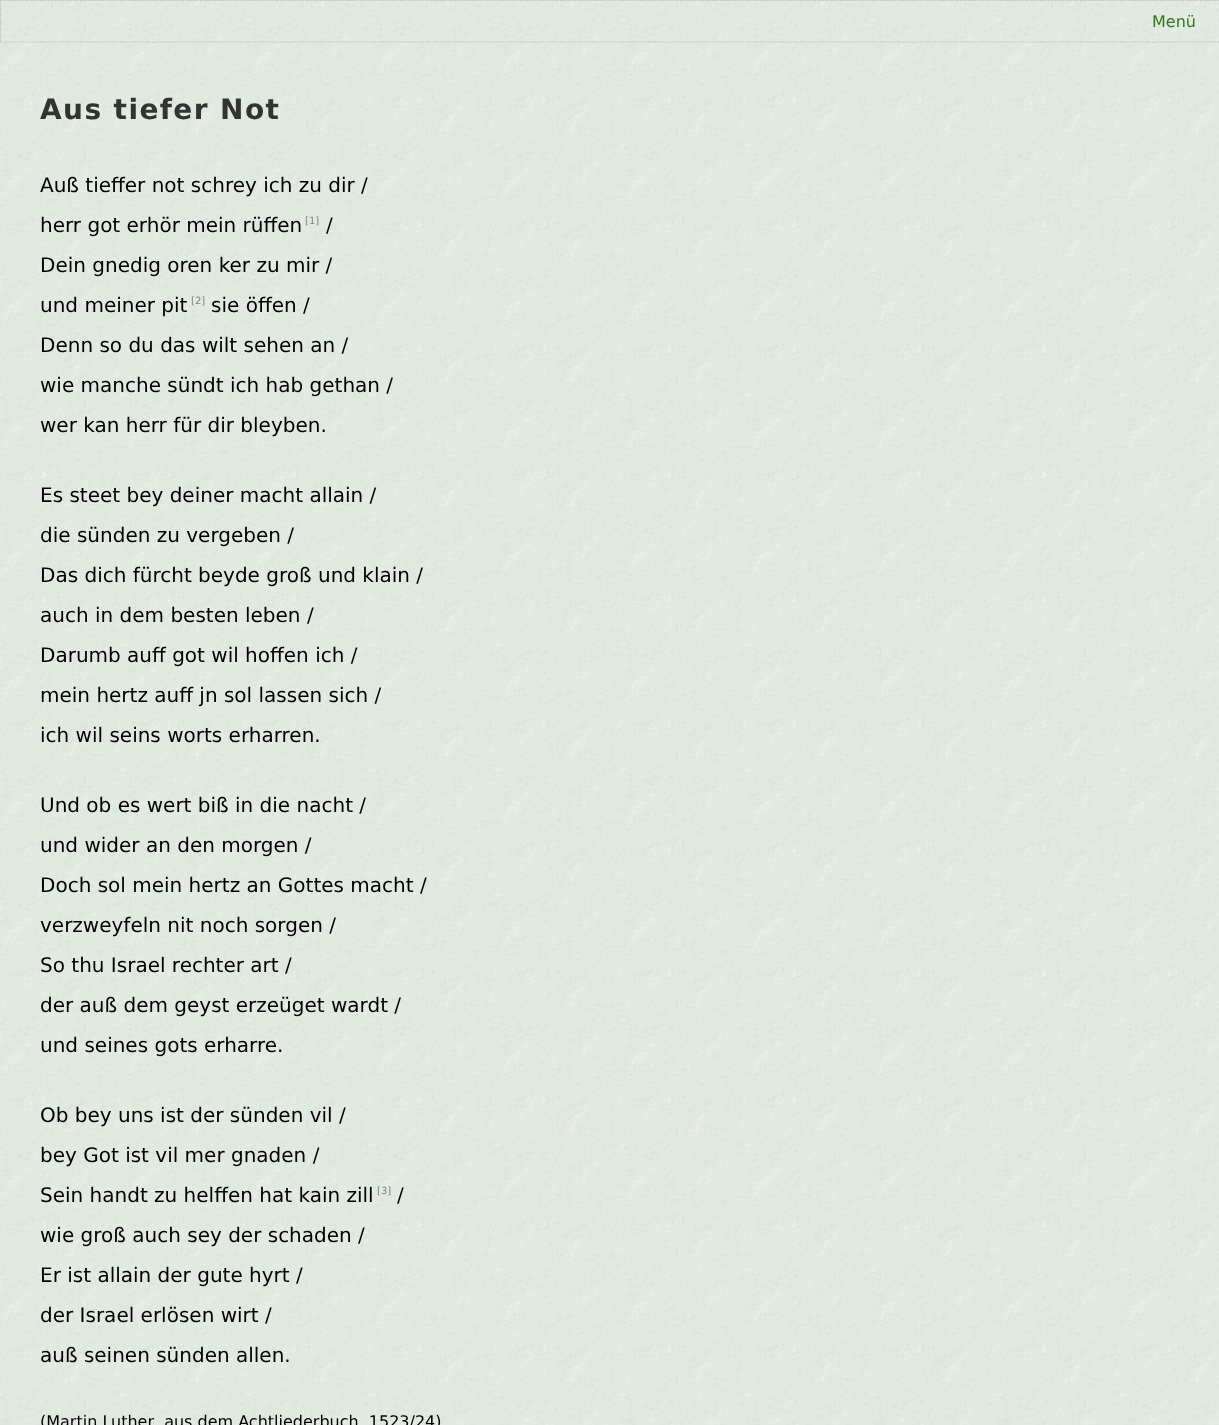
(async () => {
    const canvas = document.querySelector("canvas");
    canvas.width = 1219;
    canvas.height = 1425;
    const context = canvas.getContext("2d");
    context.miterLimit = 4;
    context.fontKerning = "normal";
    function write(s, x, y, font, color) {
        context.font = font;
        context.fillStyle = color;
        context.fillText(s, x, y);
    }
    function block(x, y, w, h, color) {
        context.fillStyle = color;
        context.fillRect(x, y, w, h);
    }
    async function photo(src, x, y, w, h) {
        const img = new Image();
        img.src = src;
        await img.decode();
        context.drawImage(img, x, y, w, h);
    }

    block(0, 0, 1219, 1425, "rgb(255, 255, 255)");
    await photo("media/1.png", 0, 0, 1219, 1425);
    context.beginPath();
    context.moveTo(0, 0.5);
    context.lineTo(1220, 0.5);
    context.strokeStyle = "rgb(187, 187, 187)";
    context.lineWidth = 1.2;
    context.setLineDash([1.25, 1.25]);
    context.stroke();
    context.beginPath();
    context.moveTo(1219.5, 0);
    context.lineTo(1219.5, 42.5);
    context.stroke();
    context.beginPath();
    context.moveTo(0, 42);
    context.lineTo(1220, 42);
    context.stroke();
    context.beginPath();
    context.moveTo(0.5, 0);
    context.lineTo(0.5, 42.5);
    context.stroke();
    write("Menü", 1152, 27, "16px DejaVu Sans", "rgb(51, 119, 34)");
    context.letterSpacing = "1.4px";
    write("Aus tiefer Not", 40, 119, "bold 28px DejaVu Sans", "rgb(51, 51, 51)");
    context.letterSpacing = "0px";
    write("Auß tieffer not schrey ich zu dir /", 40, 192, "20px DejaVu Sans", "rgb(0, 0, 0)");
    write("herr got erhör mein rüffen", 40, 232, "20px DejaVu Sans", "rgb(0, 0, 0)");
    write("[1]", 305, 224, "10px DejaVu Sans", "rgb(128, 128, 128)");
    write("/", 326, 232, "20px DejaVu Sans", "rgb(0, 0, 0)");
    write("Dein gnedig oren ker zu mir /", 40, 272, "20px DejaVu Sans", "rgb(0, 0, 0)");
    write("und meiner pit", 40, 312, "20px DejaVu Sans", "rgb(0, 0, 0)");
    write("[2]", 191, 304, "10px DejaVu Sans", "rgb(128, 128, 128)");
    write("sie öffen /", 211, 312, "20px DejaVu Sans", "rgb(0, 0, 0)");
    write("Denn so du das wilt sehen an /", 40, 352, "20px DejaVu Sans", "rgb(0, 0, 0)");
    write("wie manche sündt ich hab gethan /", 40, 392, "20px DejaVu Sans", "rgb(0, 0, 0)");
    write("wer kan herr für dir bleyben.", 40, 432, "20px DejaVu Sans", "rgb(0, 0, 0)");
    write("Es steet bey deiner macht allain /", 40, 502, "20px DejaVu Sans", "rgb(0, 0, 0)");
    write("die sünden zu vergeben /", 40, 542, "20px DejaVu Sans", "rgb(0, 0, 0)");
    write("Das dich fürcht beyde groß und klain /", 40, 582, "20px DejaVu Sans", "rgb(0, 0, 0)");
    write("auch in dem besten leben /", 40, 622, "20px DejaVu Sans", "rgb(0, 0, 0)");
    write("Darumb auff got wil hoffen ich /", 40, 662, "20px DejaVu Sans", "rgb(0, 0, 0)");
    write("mein hertz auff jn sol lassen sich /", 40, 702, "20px DejaVu Sans", "rgb(0, 0, 0)");
    write("ich wil seins worts erharren.", 40, 742, "20px DejaVu Sans", "rgb(0, 0, 0)");
    write("Und ob es wert biß in die nacht /", 40, 812, "20px DejaVu Sans", "rgb(0, 0, 0)");
    write("und wider an den morgen /", 40, 852, "20px DejaVu Sans", "rgb(0, 0, 0)");
    write("Doch sol mein hertz an Gottes macht /", 40, 892, "20px DejaVu Sans", "rgb(0, 0, 0)");
    write("verzweyfeln nit noch sorgen /", 40, 932, "20px DejaVu Sans", "rgb(0, 0, 0)");
    write("So thu Israel rechter art /", 40, 972, "20px DejaVu Sans", "rgb(0, 0, 0)");
    write("der auß dem geyst erzeüget wardt /", 40, 1012, "20px DejaVu Sans", "rgb(0, 0, 0)");
    write("und seines gots erharre.", 40, 1052, "20px DejaVu Sans", "rgb(0, 0, 0)");
    write("Ob bey uns ist der sünden vil /", 40, 1122, "20px DejaVu Sans", "rgb(0, 0, 0)");
    write("bey Got ist vil mer gnaden /", 40, 1162, "20px DejaVu Sans", "rgb(0, 0, 0)");
    write("Sein handt zu helffen hat kain zill", 40, 1202, "20px DejaVu Sans", "rgb(0, 0, 0)");
    write("[3]", 377, 1194, "10px DejaVu Sans", "rgb(128, 128, 128)");
    write("/", 397, 1202, "20px DejaVu Sans", "rgb(0, 0, 0)");
    write("wie groß auch sey der schaden /", 40, 1242, "20px DejaVu Sans", "rgb(0, 0, 0)");
    write("Er ist allain der gute hyrt /", 40, 1282, "20px DejaVu Sans", "rgb(0, 0, 0)");
    write("der Israel erlösen wirt /", 40, 1322, "20px DejaVu Sans", "rgb(0, 0, 0)");
    write("auß seinen sünden allen.", 40, 1362, "20px DejaVu Sans", "rgb(0, 0, 0)");
    write("(Martin Luther, aus dem Achtliederbuch, 1523/24)", 40, 1427, "16px DejaVu Sans", "rgb(0, 0, 0)");
})();
